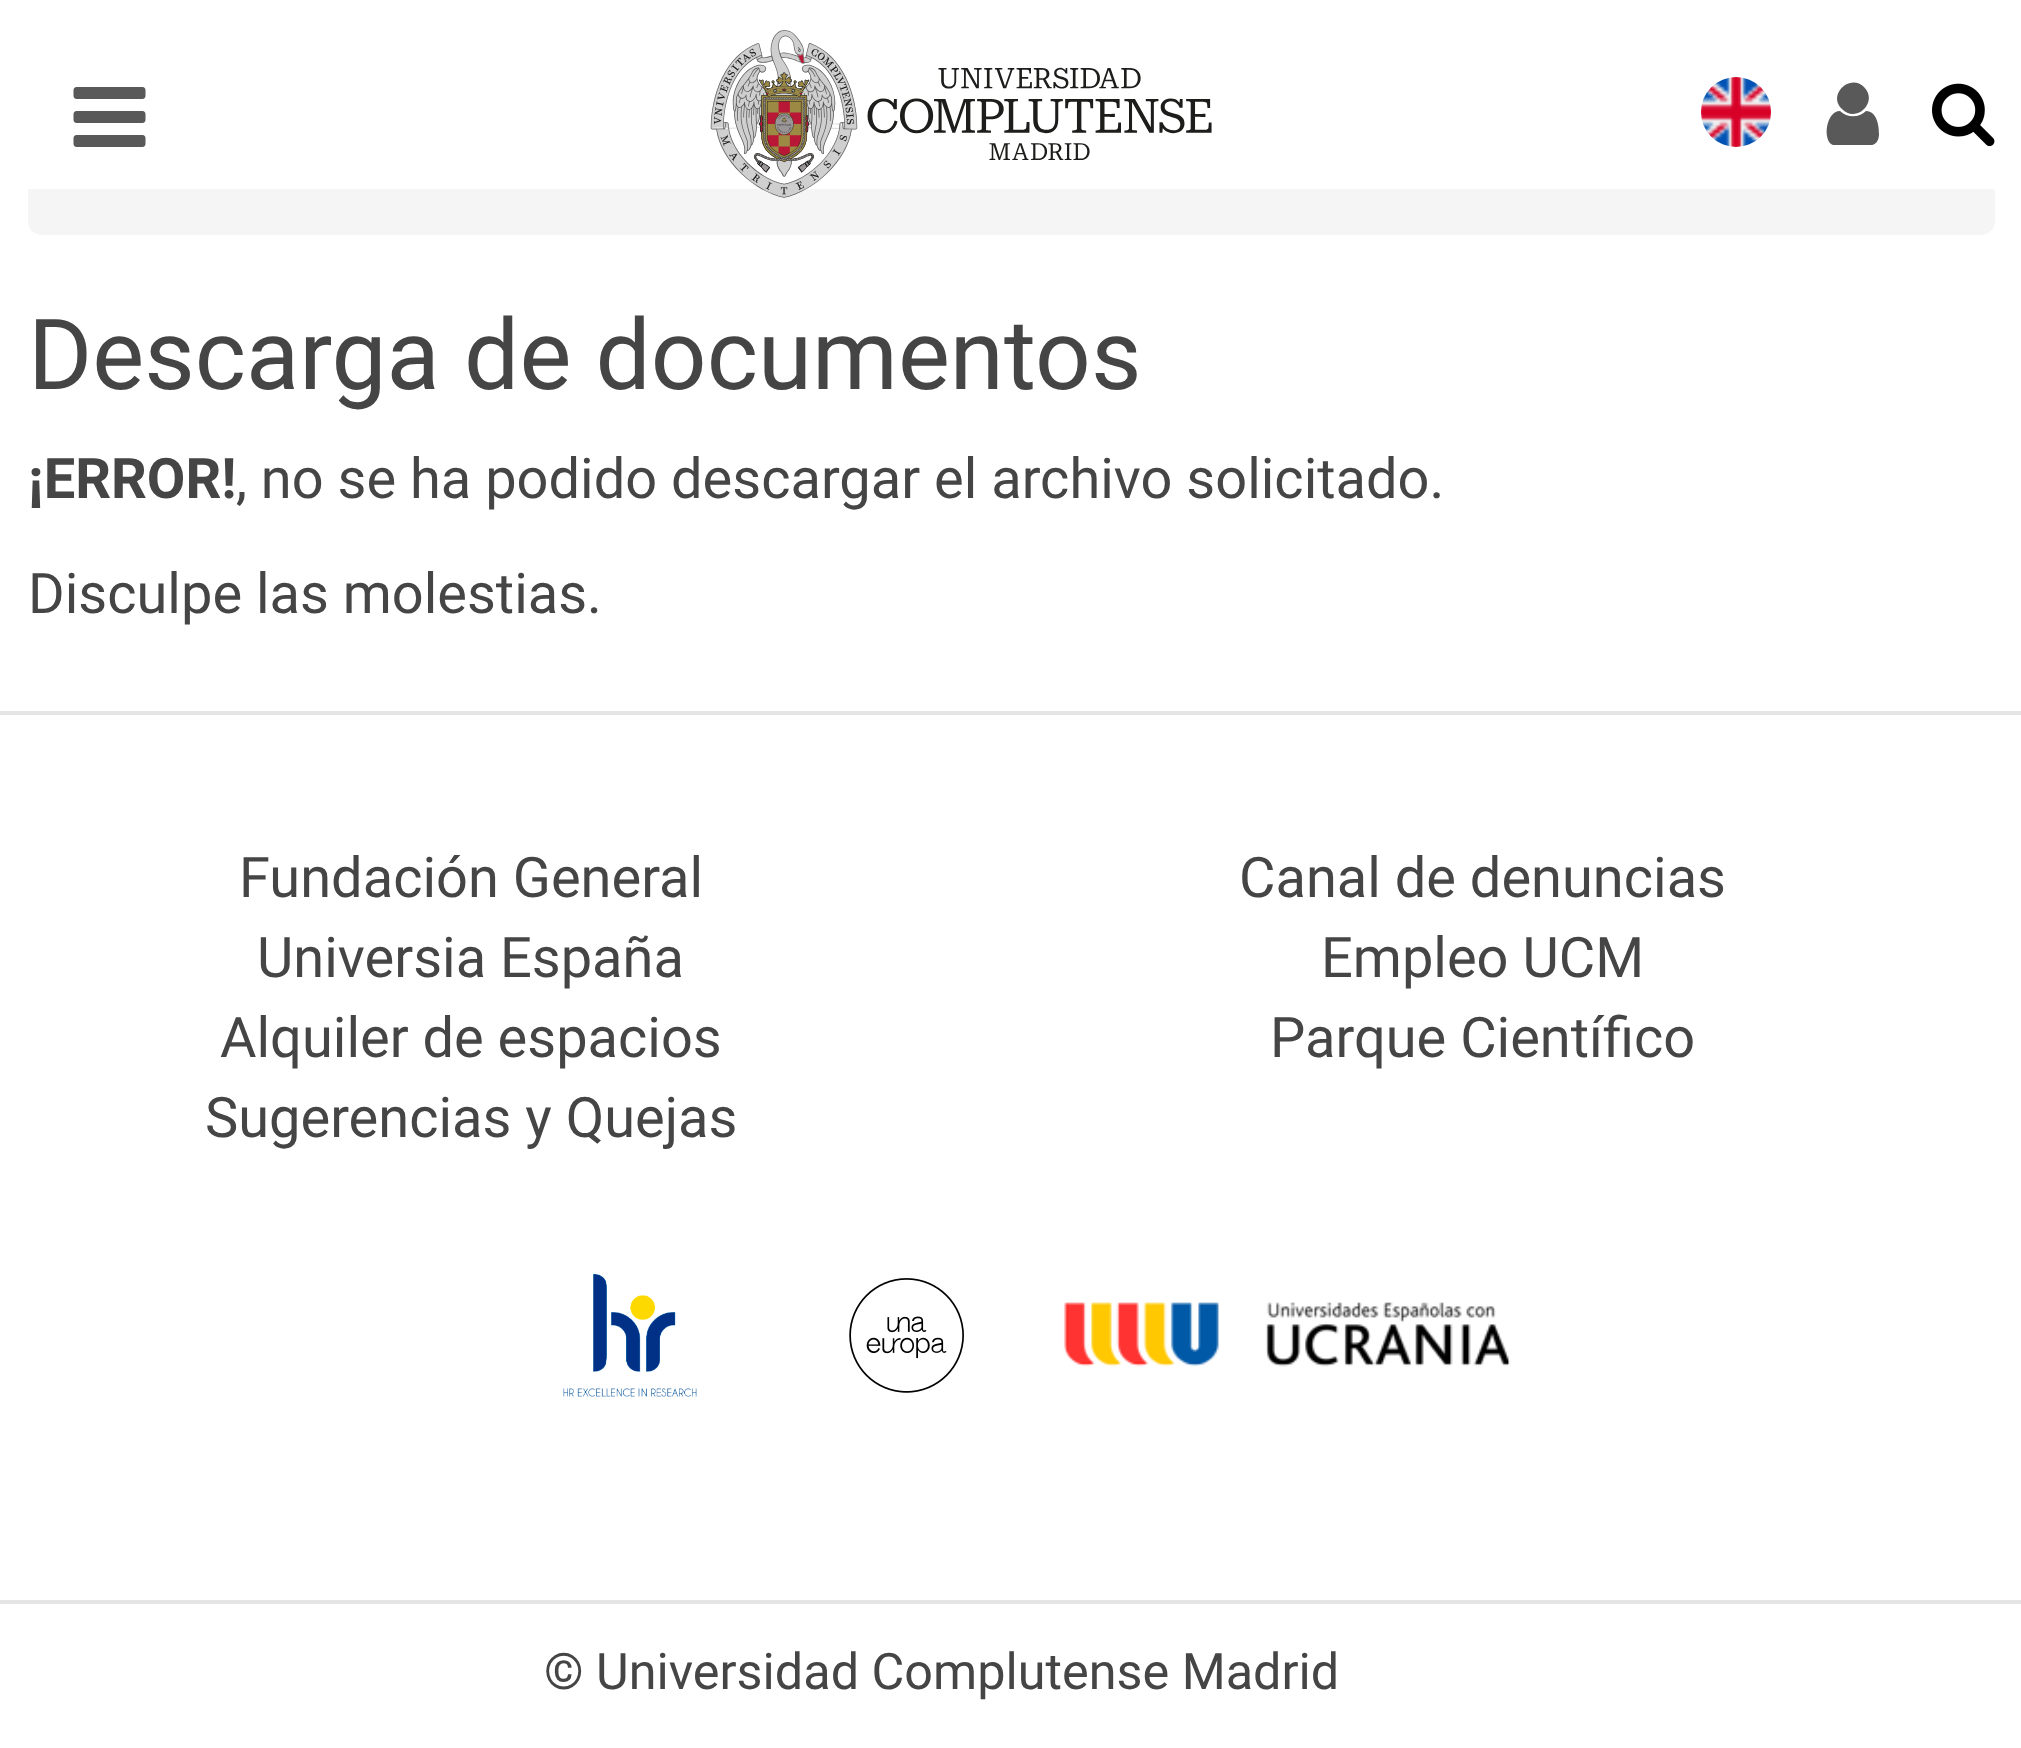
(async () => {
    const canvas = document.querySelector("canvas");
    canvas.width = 2021;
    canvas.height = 1748;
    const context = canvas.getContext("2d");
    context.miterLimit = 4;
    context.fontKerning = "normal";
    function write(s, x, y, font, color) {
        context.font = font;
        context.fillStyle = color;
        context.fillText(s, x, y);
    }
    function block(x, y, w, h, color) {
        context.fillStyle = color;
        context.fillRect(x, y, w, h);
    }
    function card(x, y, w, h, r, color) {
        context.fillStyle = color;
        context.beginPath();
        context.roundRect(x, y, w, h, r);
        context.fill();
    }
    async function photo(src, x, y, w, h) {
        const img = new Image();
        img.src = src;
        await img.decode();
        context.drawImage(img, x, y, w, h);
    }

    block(0, 0, 2021, 1748, "rgb(255, 255, 255)");
    card(28, 179, 1967, 56, 14, "rgb(245, 245, 245)");
    block(29, 179, 1965, 10, "rgb(255, 255, 255)");
    await photo("media/1.png", 710, 30, 502, 168);
    await photo("media/2.png", 1701, 77, 70, 70);
    context.fillStyle = "rgb(89, 89, 89)";
    context.beginPath();
    context.moveTo(1879, 134);
    context.bezierCurveTo(1879, 139, 1877, 144, 1872, 145);
    context.lineTo(1841, 145);
    context.lineTo(1833, 145);
    context.bezierCurveTo(1822, 141, 1826, 111, 1840, 111);
    context.bezierCurveTo(1847, 118, 1859, 118, 1866, 111);
    context.bezierCurveTo(1877, 111, 1879, 126, 1879, 134);
    context.closePath();
    context.moveTo(1864, 87);
    context.bezierCurveTo(1879, 102, 1856, 124, 1842, 109);
    context.bezierCurveTo(1827, 95, 1850, 73, 1864, 87);
    context.closePath();
    context.fill();
    await photo("media/3.png", 1932, 83, 63, 64);
    await photo("media/4.png", 73, 87, 73, 60);
    write("Descarga de documentos", 28, 389, "98px Roboto", "rgb(69, 69, 69)");
    write("¡ERROR!", 28, 498, "bold 56px Roboto", "rgb(69, 69, 69)");
    write(", no se ha podido descargar el archivo solicitado.", 236, 498, "56px Roboto", "rgb(69, 69, 69)");
    write("Disculpe las molestias.", 28, 613, "56px Roboto", "rgb(69, 69, 69)");
    block(0, 711, 2021, 4, "rgb(229, 229, 229)");
    write("Fundación General", 239, 897, "56px Roboto", "rgb(69, 69, 69)");
    write("Canal de denuncias", 1239, 897, "56px Roboto", "rgb(69, 69, 69)");
    write("Universia España", 257, 977, "56px Roboto", "rgb(69, 69, 69)");
    write("Empleo UCM", 1321, 977, "56px Roboto", "rgb(69, 69, 69)");
    write("Alquiler de espacios", 220, 1057, "56px Roboto", "rgb(69, 69, 69)");
    write("Parque Científico", 1270, 1057, "56px Roboto", "rgb(69, 69, 69)");
    write("Sugerencias y Quejas", 205, 1137, "56px Roboto", "rgb(69, 69, 69)");
    await photo("media/5.png", 563, 1274, 134, 123);
    await photo("media/6.png", 849, 1278, 115, 115);
    await photo("media/7.png", 1063, 1302, 448, 65);
    block(0, 1600, 2021, 4, "rgb(229, 229, 229)");
    write("© Universidad Complutense Madrid", 544, 1689, "50.4px Roboto", "rgb(69, 69, 69)");
})();
